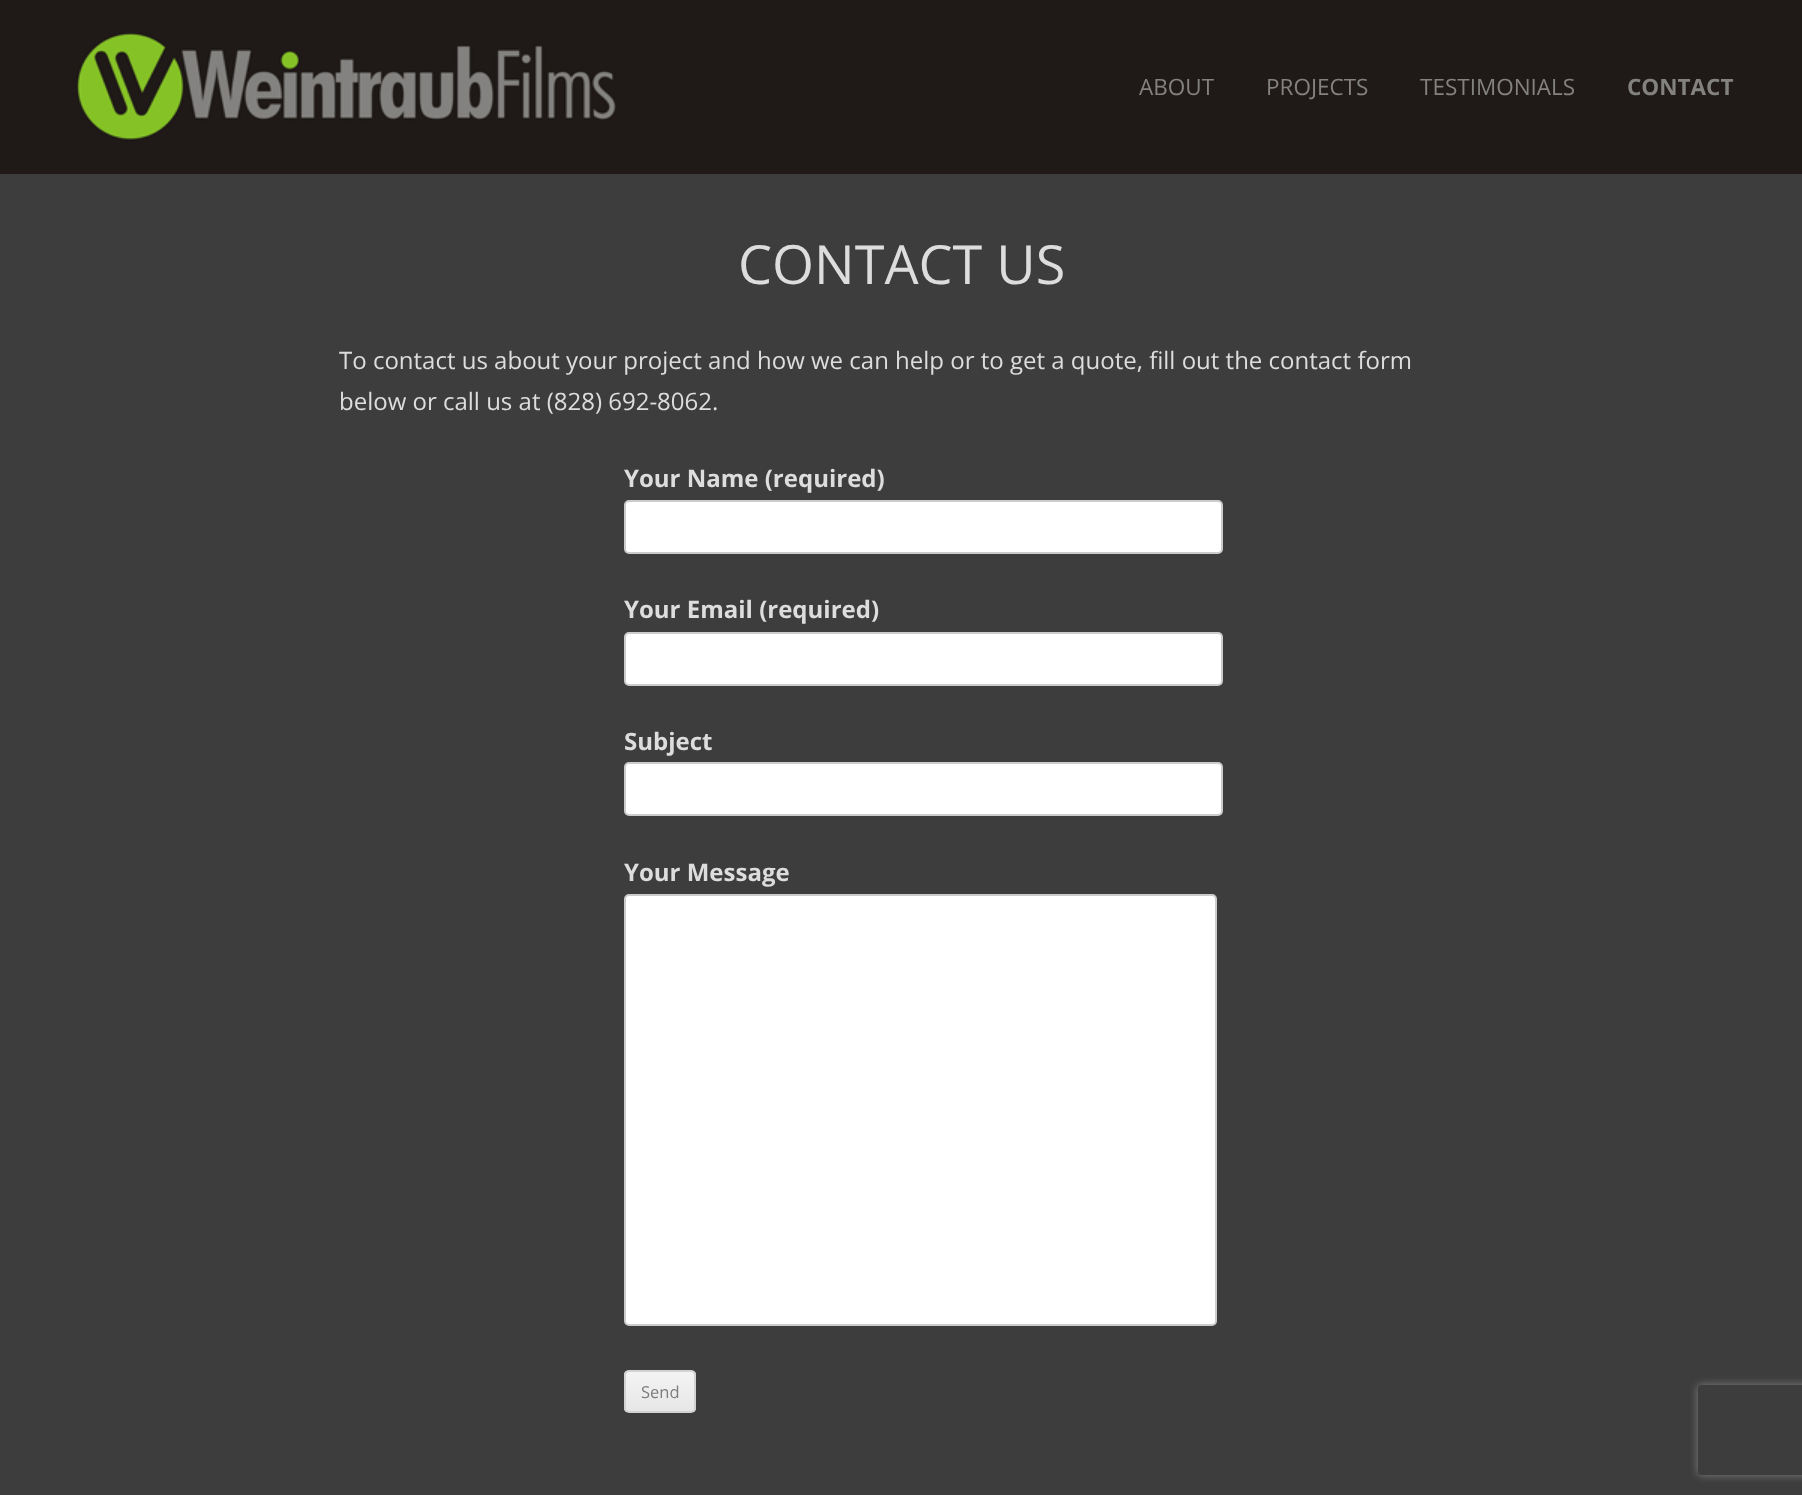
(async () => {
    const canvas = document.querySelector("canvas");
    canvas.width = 1802;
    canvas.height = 1495;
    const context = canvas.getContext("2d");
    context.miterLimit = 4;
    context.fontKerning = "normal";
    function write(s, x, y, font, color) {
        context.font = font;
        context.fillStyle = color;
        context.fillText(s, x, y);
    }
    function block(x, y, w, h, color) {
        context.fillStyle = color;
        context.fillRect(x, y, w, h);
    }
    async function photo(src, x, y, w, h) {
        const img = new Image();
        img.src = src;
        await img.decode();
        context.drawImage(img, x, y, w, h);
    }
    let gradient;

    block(0, 0, 1802, 1495, "rgb(62, 61, 61)");
    block(0, 0, 1802, 174, "rgb(31, 26, 23)");
    await photo("media/1.png", 76, 33, 540, 108);
    write("ABOUT", 1139, 95, "22.5px Open Sans", "rgb(131, 130, 128)");
    write("PROJECTS", 1266, 95, "22.5px Open Sans", "rgb(131, 130, 128)");
    write("TESTIMONIALS", 1420, 95, "22.5px Open Sans", "rgb(131, 130, 128)");
    write("CONTACT", 1627, 95, "bold 22.5px Open Sans", "rgb(131, 130, 128)");
    write("CONTACT US", 738, 284, "54px Open Sans", "rgb(221, 221, 221)");
    write("To contact us about your project and how we can help or to get a quote, fill out the contact form", 339, 369, "24px Open Sans", "rgb(221, 221, 221)");
    write("below or call us at (828) 692-8062.", 339, 410, "24px Open Sans", "rgb(221, 221, 221)");
    write("Your Name (required)", 624, 487, "bold 24px Open Sans", "rgb(221, 221, 221)");
    context.fillStyle = "rgb(255, 255, 255)";
    context.beginPath();
    context.roundRect(625, 501, 597, 52, 4);
    context.fill();
    context.strokeStyle = "rgb(204, 204, 204)";
    context.lineWidth = 2;
    context.stroke();
    write("Your Email (required)", 624, 618, "bold 24px Open Sans", "rgb(221, 221, 221)");
    context.fillStyle = "rgb(255, 255, 255)";
    context.beginPath();
    context.roundRect(625, 633, 597, 52, 4);
    context.fill();
    context.stroke();
    write("Subject", 624, 750, "bold 24px Open Sans", "rgb(221, 221, 221)");
    context.fillStyle = "rgb(255, 255, 255)";
    context.beginPath();
    context.roundRect(625, 763, 597, 52, 4);
    context.fill();
    context.stroke();
    write("Your Message", 624, 881, "bold 24px Open Sans", "rgb(221, 221, 221)");
    context.fillStyle = "rgb(255, 255, 255)";
    context.beginPath();
    context.roundRect(625, 895, 591, 430, 4);
    context.fill();
    context.stroke();
    context.save();
    context.beginPath();
    context.roundRect(624, 1370, 72, 43, 5);
    context.clip();
    gradient = context.createLinearGradient(660, 1371, 660, 1412);
    gradient.addColorStop(0, "rgb(244, 244, 244)");
    gradient.addColorStop(1, "rgb(230, 230, 230)");
    context.fillStyle = gradient;
    context.fillRect(624, 1371, 72, 41);
    context.restore();
    context.beginPath();
    context.roundRect(625, 1371, 70, 41, 4);
    context.strokeStyle = "rgb(210, 210, 210)";
    context.stroke();
    write("Send", 641, 1398, "16.5px Open Sans", "rgb(124, 124, 124)");
    context.save();
    context.beginPath();
    context.moveTo(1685, 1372);
    context.lineTo(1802, 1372);
    context.lineTo(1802, 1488);
    context.lineTo(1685, 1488);
    context.closePath();
    context.moveTo(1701, 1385);
    context.lineTo(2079, 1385);
    context.bezierCurveTo(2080.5, 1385, 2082, 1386.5, 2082, 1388);
    context.lineTo(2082, 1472);
    context.bezierCurveTo(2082, 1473.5, 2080.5, 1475, 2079, 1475);
    context.lineTo(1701, 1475);
    context.bezierCurveTo(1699.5, 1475, 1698, 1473.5, 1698, 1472);
    context.lineTo(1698, 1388);
    context.bezierCurveTo(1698, 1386.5, 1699.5, 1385, 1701, 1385);
    context.closePath();
    context.clip("evenodd");
    context.fillStyle = "rgb(128, 128, 128)";
    context.filter = "blur(4px)";
    context.beginPath();
    context.roundRect(1698, 1385, 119, 90, 3);
    context.fill();
    context.filter = "none";
    context.restore();
})();
